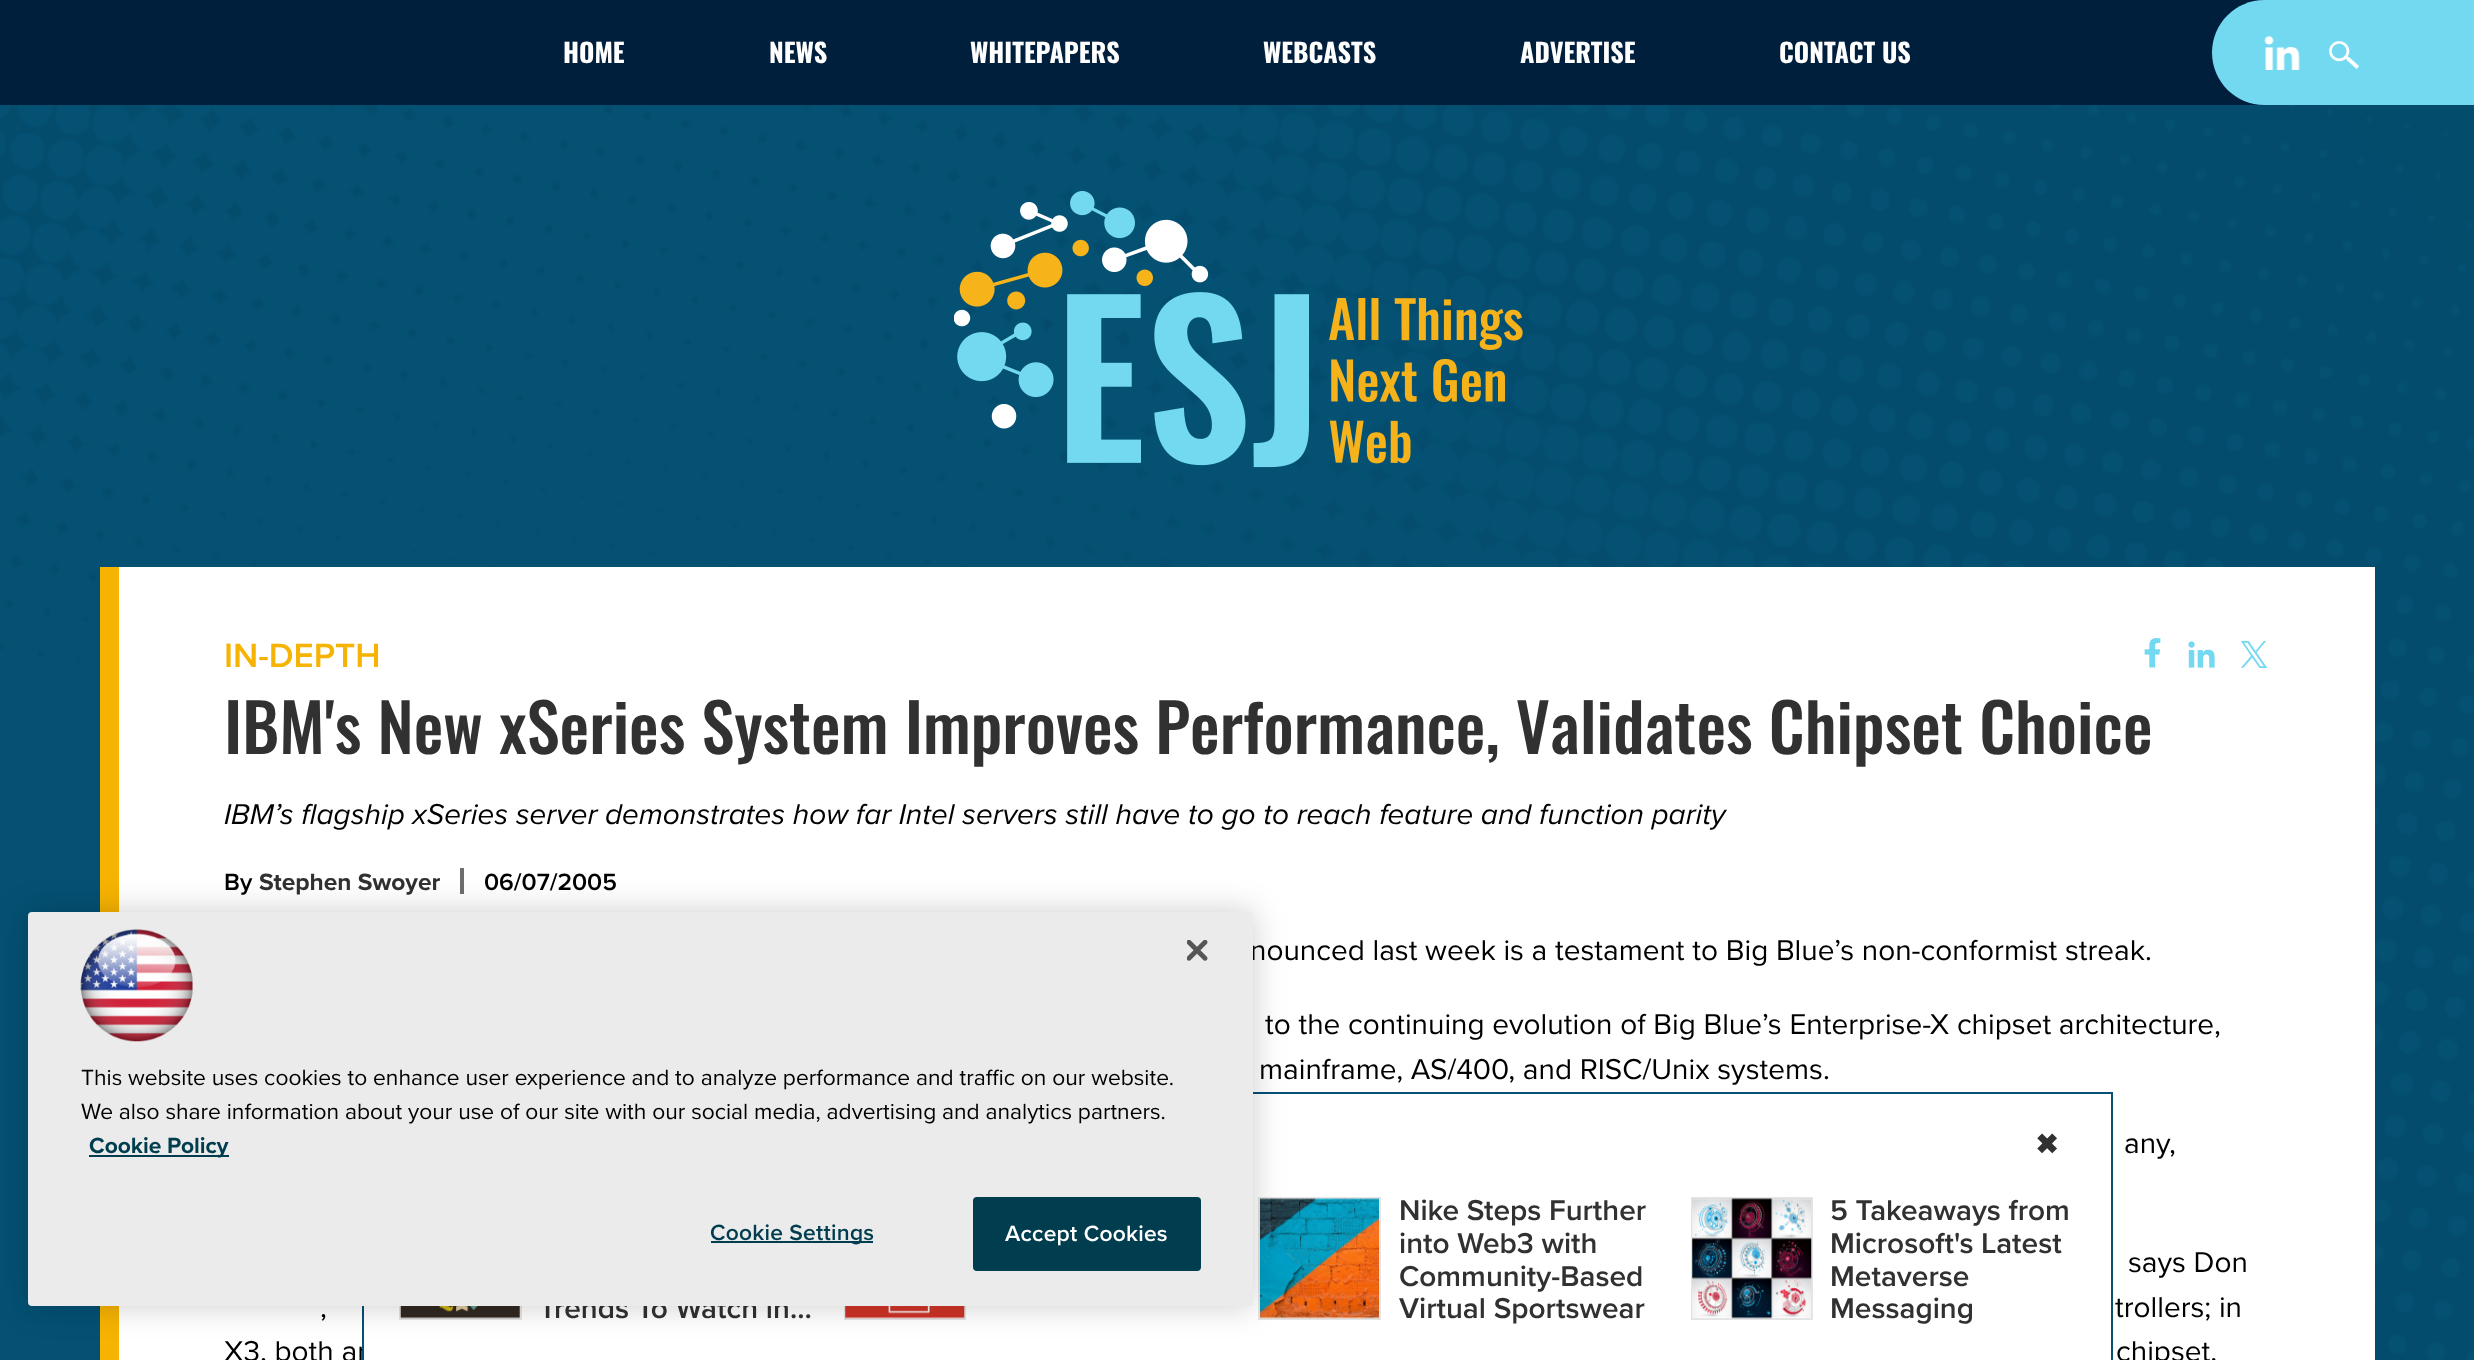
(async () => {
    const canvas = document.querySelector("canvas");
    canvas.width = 2474;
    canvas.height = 1360;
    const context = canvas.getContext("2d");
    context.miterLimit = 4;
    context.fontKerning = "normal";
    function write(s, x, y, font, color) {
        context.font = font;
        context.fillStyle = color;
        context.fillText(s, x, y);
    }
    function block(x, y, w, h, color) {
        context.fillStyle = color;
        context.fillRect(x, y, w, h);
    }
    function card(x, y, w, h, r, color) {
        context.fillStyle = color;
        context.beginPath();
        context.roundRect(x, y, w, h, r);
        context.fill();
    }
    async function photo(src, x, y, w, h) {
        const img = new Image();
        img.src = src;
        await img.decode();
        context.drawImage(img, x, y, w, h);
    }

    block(0, 0, 2474, 1360, "rgb(255, 255, 255)");
    await photo("media/1.png", 0, 105, 2474, 1255);
    block(0, 0, 2264, 105, "rgb(0, 31, 61)");
    context.fillStyle = "rgb(115, 217, 240)";
    context.beginPath();
    context.moveTo(2264.5, 0);
    context.lineTo(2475, 0);
    context.lineTo(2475, 105);
    context.lineTo(2264.5, 105);
    context.bezierCurveTo(2235.5, 105, 2212, 81.5, 2212, 52.5);
    context.bezierCurveTo(2212, 23.5, 2235.5, 0, 2264.5, 0);
    context.closePath();
    context.fill();
    await photo("media/2.png", 2264, 36, 36, 34);
    await photo("media/3.png", 2329, 41, 30, 28);
    write("HOME", 563, 63, "bold 26.25px Oswald", "rgb(255, 255, 255)");
    write("NEWS", 769, 63, "bold 26.25px Oswald", "rgb(255, 255, 255)");
    write("WHITEPAPERS", 970, 63, "bold 26.25px Oswald", "rgb(255, 255, 255)");
    write("WEBCASTS", 1263, 63, "bold 26.25px Oswald", "rgb(255, 255, 255)");
    write("ADVERTISE", 1520, 63, "bold 26.25px Oswald", "rgb(255, 255, 255)");
    write("CONTACT US", 1779, 63, "bold 26.25px Oswald", "rgb(255, 255, 255)");
    await photo("media/4.png", 954, 191, 569, 277);
    block(119, 567, 2256, 793, "rgb(255, 255, 255)");
    block(100, 567, 19, 793, "rgb(247, 179, 1)");
    write("IN-DEPTH", 224, 667, "600 35px Proxima Nova", "rgb(247, 179, 1)");
    await photo("media/5.png", 2144, 638, 17, 30);
    await photo("media/6.png", 2188, 641, 27, 27);
    await photo("media/7.png", 2241, 641, 27, 27);
    write("IBM's New xSeries System Improves Performance, Validates Chipset Choice", 224, 754, "500 66.5px Oswald", "rgb(50, 49, 50)");
    write("IBM’s flagship xSeries server demonstrates how far Intel servers still have to go to reach feature and function parity", 224, 824, "italic 29.75px Proxima Nova", "rgb(0, 0, 0)");
    write("By", 224, 890, "600 24.5px Proxima Nova", "rgb(0, 0, 0)");
    write("Stephen Swoyer", 259, 890, "bold 24.5px Proxima Nova", "rgb(50, 49, 50)");
    block(460, 868, 4, 26, "rgb(109, 110, 112)");
    write("06/07/2005", 484, 890, "600 24.5px Proxima Nova", "rgb(0, 0, 0)");
    write("nounced last week is a testament to Big Blue’s non-conformist streak.", 1250, 960, "29.75px Proxima Nova", "rgb(0, 0, 0)");
    write("to the continuing evolution of Big Blue’s Enterprise-X chipset architecture,", 1265, 1034, "29.75px Proxima Nova", "rgb(0, 0, 0)");
    write("mainframe, AS/400, and RISC/Unix systems.", 1259, 1079, "29.75px Proxima Nova", "rgb(0, 0, 0)");
    write("any,", 2124, 1153, "29.75px Proxima Nova", "rgb(0, 0, 0)");
    write("says Don", 2128, 1272, "29.75px Proxima Nova", "rgb(0, 0, 0)");
    write(",", 320, 1317, "29.75px Proxima Nova", "rgb(0, 0, 0)");
    write("trollers; in", 2115, 1317, "29.75px Proxima Nova", "rgb(0, 0, 0)");
    write("X3, both ar", 224, 1361, "29.75px Proxima Nova", "rgb(0, 0, 0)");
    write("chipset,", 2116, 1361, "29.75px Proxima Nova", "rgb(0, 0, 0)");
    block(364, 1346, 3, 3, "rgb(255, 255, 255)");
    block(1253, 1092, 859, 2, "rgb(4, 81, 116)");
    block(2111, 1092, 2, 268, "rgb(4, 81, 116)");
    block(362, 1306, 2, 54, "rgb(4, 81, 116)");
    write("✖", 2035, 1154, "bold 28px DejaVu Sans", "rgb(50, 49, 50)");
    context.strokeStyle = "rgb(228, 228, 228)";
    context.lineWidth = 2;
    context.strokeRect(400, 1198, 121, 121);
    await photo("media/8.png", 400, 1306, 120, 13);
    write("Trends To Watch in…", 539, 1318, "600 29.75px Proxima Nova", "rgb(50, 49, 50)");
    context.strokeRect(845, 1198, 120, 121);
    await photo("media/9.png", 845, 1306, 120, 13);
    context.strokeRect(1259, 1198, 121, 121);
    await photo("media/10.png", 1260, 1198, 119, 121);
    write("Nike Steps Further", 1399, 1220, "600 29.75px Proxima Nova", "rgb(50, 49, 50)");
    write("into Web3 with", 1399, 1253, "600 29.75px Proxima Nova", "rgb(50, 49, 50)");
    write("Community-Based", 1399, 1286, "600 29.75px Proxima Nova", "rgb(50, 49, 50)");
    write("Virtual Sportswear", 1399, 1318, "600 29.75px Proxima Nova", "rgb(50, 49, 50)");
    context.strokeRect(1692, 1198, 120, 121);
    await photo("media/11.png", 1692, 1198, 120, 121);
    write("5 Takeaways from", 1830, 1220, "600 29.75px Proxima Nova", "rgb(50, 49, 50)");
    write("Microsoft's Latest", 1830, 1253, "600 29.75px Proxima Nova", "rgb(50, 49, 50)");
    write("Metaverse", 1830, 1286, "600 29.75px Proxima Nova", "rgb(50, 49, 50)");
    write("Messaging", 1830, 1318, "600 29.75px Proxima Nova", "rgb(50, 49, 50)");
    context.fillStyle = "rgba(0, 0, 0, 0.2)";
    context.filter = "blur(16px)";
    context.beginPath();
    context.roundRect(28, 912, 1225, 394, 4);
    context.fill();
    context.filter = "none";
    card(28, 912, 1225, 394, 4, "rgb(235, 235, 235)");
    await photo("media/12.png", 1187, 940, 21, 21);
    await photo("media/13.png", 80, 929, 113, 113);
    write("This website uses cookies to enhance user experience and to analyze performance and traffic on our website.", 81, 1085, "22.75px Proxima Nova", "rgb(0, 0, 0)");
    write("We also share information about your use of our site with our social media, advertising and analytics partners.", 81, 1119, "22.75px Proxima Nova", "rgb(0, 0, 0)");
    block(89, 1155, 140, 2, "rgb(0, 61, 79)");
    write("Cookie Policy", 89, 1153, "bold 22.75px Proxima Nova", "rgb(0, 61, 79)");
    block(711, 1241, 162, 2, "rgb(0, 61, 79)");
    context.letterSpacing = "0.25px";
    write("Cookie Settings", 710, 1240, "600 22.75px Proxima Nova", "rgb(0, 61, 79)");
    context.beginPath();
    context.roundRect(974, 1198, 226, 72, 3);
    context.fill();
    context.strokeStyle = "rgb(0, 61, 79)";
    context.stroke();
    write("Accept Cookies", 1005, 1241, "600 22.75px Proxima Nova", "rgb(255, 255, 255)");
})();
